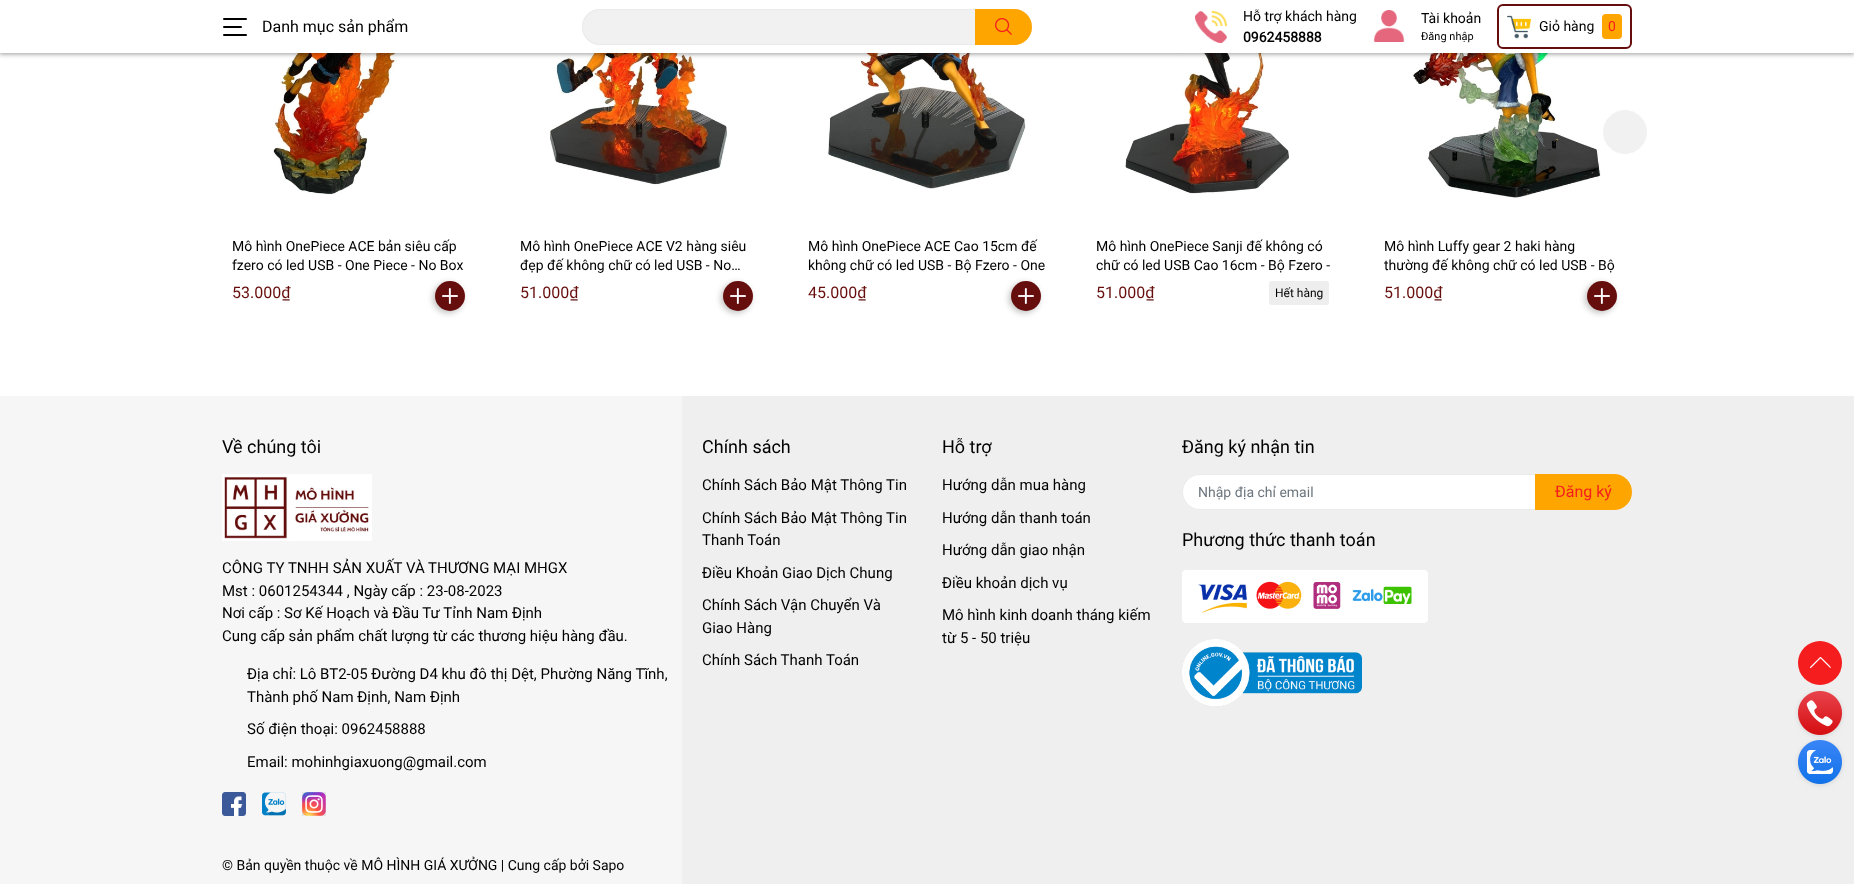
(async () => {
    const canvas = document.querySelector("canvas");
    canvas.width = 1854;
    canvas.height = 884;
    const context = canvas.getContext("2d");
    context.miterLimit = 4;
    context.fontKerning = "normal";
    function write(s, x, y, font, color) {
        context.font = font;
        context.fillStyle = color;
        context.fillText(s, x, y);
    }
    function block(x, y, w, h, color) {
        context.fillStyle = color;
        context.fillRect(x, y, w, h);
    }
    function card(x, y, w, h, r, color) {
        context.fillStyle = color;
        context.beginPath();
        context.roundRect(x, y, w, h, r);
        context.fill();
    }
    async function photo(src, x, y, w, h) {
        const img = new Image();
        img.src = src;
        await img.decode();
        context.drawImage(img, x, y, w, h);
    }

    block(0, 0, 1854, 884, "rgb(255, 255, 255)");
    await photo("media/5.png", 273, 53, 168, 142);
    await photo("media/7.png", 550, 53, 177, 132);
    await photo("media/8.png", 828, 53, 198, 136);
    await photo("media/9.png", 1125, 53, 164, 141);
    await photo("media/10.png", 1413, 53, 188, 145);
    context.fillStyle = "rgba(0, 0, 0, 0.4)";
    context.filter = "blur(2.5px)";
    context.beginPath();
    context.rect(-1, -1, 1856, 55);
    context.fill();
    context.filter = "none";
    block(0, 0, 1854, 53, "rgb(255, 255, 255)");
    card(223, 18, 24, 2, 1, "rgb(0, 0, 0)");
    card(223, 26, 19, 2, 1, "rgb(0, 0, 0)");
    card(223, 34, 24, 2, 1, "rgb(0, 0, 0)");
    write("Danh mục sản phẩm", 262, 32, "16px Roboto", "rgb(0, 0, 0)");
    card(582, 9, 450, 36, 18, "rgb(241, 241, 241)");
    context.fillStyle = "rgb(235, 235, 235)";
    context.beginPath();
    context.moveTo(600, 9);
    context.bezierCurveTo(590, 9, 582, 17, 582, 27);
    context.bezierCurveTo(582, 37, 590, 45, 600, 45);
    context.lineTo(1014, 45);
    context.lineTo(1020, 44);
    context.lineTo(600, 44);
    context.bezierCurveTo(591, 44, 583, 36, 583, 27);
    context.bezierCurveTo(583, 18, 591, 10, 600, 10);
    context.lineTo(1020, 10);
    context.lineTo(1014, 9);
    context.closePath();
    context.moveTo(1031, 21);
    context.lineTo(1031, 33);
    context.bezierCurveTo(1032, 29, 1032, 25, 1031, 21);
    context.closePath();
    context.fill("evenodd");
    context.fillStyle = "rgb(255, 165, 0)";
    context.beginPath();
    context.roundRect(975, 9, 57, 36, [0, 18, 18, 0]);
    context.fill();
    await photo("media/1.png", 995, 18, 17, 17);
    await photo("media/2.png", 1195, 11, 32, 32);
    write("Hỗ trợ khách hàng", 1243, 21, "14px Roboto", "rgb(0, 0, 0)");
    write("0962458888", 1243, 42, "bold 14px Roboto", "rgb(0, 0, 0)");
    await photo("media/3.png", 1373, 10, 32, 32);
    write("Tài khoản", 1421, 23, "14px Roboto", "rgb(0, 0, 0)");
    write("Đăng nhập", 1421, 40, "11px Roboto", "rgb(0, 0, 0)");
    context.beginPath();
    context.roundRect(1498, 5, 133, 43, 5);
    context.strokeStyle = "rgb(102, 14, 13)";
    context.lineWidth = 2;
    context.stroke();
    await photo("media/4.png", 1507, 15, 24, 24);
    write("Giỏ hàng", 1539, 31, "14px Roboto", "rgb(0, 0, 0)");
    card(1602, 14, 20, 25, 4, "rgb(255, 165, 0)");
    write("0", 1608, 31, "14px Roboto", "rgb(245, 29, 29)");
    context.fillStyle = "rgb(241, 241, 241)";
    context.beginPath();
    context.arc(1625, 132, 21.5, 0, Math.PI * 2);
    context.fill();
    context.strokeStyle = "rgb(241, 241, 241)";
    context.lineWidth = 1;
    context.stroke();
    write("Mô hình OnePiece ACE bản siêu cấp", 232, 251, "14px Roboto", "rgb(0, 0, 0)");
    write("fzero có led USB - One Piece - No Box", 232, 270, "14px Roboto", "rgb(0, 0, 0)");
    write("53.000₫", 232, 298, "16px Roboto", "rgb(102, 14, 13)");
    context.fillStyle = "rgba(0, 0, 0, 0.25)";
    context.filter = "blur(3px)";
    context.beginPath();
    context.roundRect(433, 283, 30, 30, 15);
    context.fill();
    context.filter = "none";
    context.fillStyle = "rgb(102, 14, 13)";
    context.beginPath();
    context.arc(450, 296, 15, 0, Math.PI * 2);
    context.fill();
    await photo("media/6.png", 442, 288, 16, 16);
    write("Mô hình OnePiece ACE V2 hàng siêu", 520, 251, "14px Roboto", "rgb(0, 0, 0)");
    write("đẹp đế không chữ có led USB - No…", 520, 270, "14px Roboto", "rgb(0, 0, 0)");
    write("51.000₫", 520, 298, "16px Roboto", "rgb(102, 14, 13)");
    context.fillStyle = "rgba(0, 0, 0, 0.25)";
    context.filter = "blur(3px)";
    context.beginPath();
    context.roundRect(721, 283, 30, 30, 15);
    context.fill();
    context.filter = "none";
    context.fillStyle = "rgb(102, 14, 13)";
    context.beginPath();
    context.arc(738, 296, 15, 0, Math.PI * 2);
    context.fill();
    await photo("media/6.png", 730, 288, 16, 16);
    write("Mô hình OnePiece ACE Cao 15cm đế", 808, 251, "14px Roboto", "rgb(0, 0, 0)");
    write("không chữ có led USB - Bộ Fzero - One", 808, 270, "14px Roboto", "rgb(0, 0, 0)");
    write("45.000₫", 808, 298, "16px Roboto", "rgb(102, 14, 13)");
    context.fillStyle = "rgba(0, 0, 0, 0.25)";
    context.filter = "blur(3px)";
    context.beginPath();
    context.roundRect(1009, 283, 30, 30, 15);
    context.fill();
    context.filter = "none";
    context.fillStyle = "rgb(102, 14, 13)";
    context.beginPath();
    context.arc(1026, 296, 15, 0, Math.PI * 2);
    context.fill();
    await photo("media/6.png", 1018, 288, 16, 16);
    write("Mô hình OnePiece Sanji đế không có", 1096, 251, "14px Roboto", "rgb(0, 0, 0)");
    write("chữ có led USB Cao 16cm - Bộ Fzero -", 1096, 270, "14px Roboto", "rgb(0, 0, 0)");
    write("51.000₫", 1096, 298, "16px Roboto", "rgb(102, 14, 13)");
    card(1269, 281, 60, 24, 3, "rgb(238, 238, 238)");
    write("Hết hàng", 1275, 297, "12px Roboto", "rgb(0, 0, 0)");
    write("Mô hình Luffy gear 2 haki hàng", 1384, 251, "14px Roboto", "rgb(0, 0, 0)");
    write("thường đế không chữ có led USB - Bộ", 1384, 270, "14px Roboto", "rgb(0, 0, 0)");
    write("51.000₫", 1384, 298, "16px Roboto", "rgb(102, 14, 13)");
    context.fillStyle = "rgba(0, 0, 0, 0.25)";
    context.filter = "blur(3px)";
    context.beginPath();
    context.roundRect(1585, 283, 30, 30, 15);
    context.fill();
    context.filter = "none";
    context.fillStyle = "rgb(102, 14, 13)";
    context.beginPath();
    context.arc(1602, 296, 15, 0, Math.PI * 2);
    context.fill();
    await photo("media/6.png", 1594, 288, 16, 16);
    block(682, 396, 1172, 488, "rgb(239, 239, 239)");
    block(0, 396, 682, 488, "rgb(246, 246, 246)");
    write("Về chúng tôi", 222, 453, "18px Roboto", "rgb(0, 0, 0)");
    await photo("media/11.png", 222, 474, 150, 67);
    write("CÔNG TY TNHH SẢN XUẤT VÀ THƯƠNG MẠI MHGX", 222, 573, "15px Roboto", "rgb(0, 0, 0)");
    write("Mst : 0601254344 , Ngày cấp : 23-08-2023", 222, 596, "15px Roboto", "rgb(0, 0, 0)");
    write("Nơi cấp : Sơ Kế Hoạch và Đầu Tư Tỉnh Nam Định", 222, 618, "15px Roboto", "rgb(0, 0, 0)");
    write("Cung cấp sản phẩm chất lượng từ các thương hiệu hàng đầu.", 222, 641, "15px Roboto", "rgb(0, 0, 0)");
    write("Địa chỉ: Lô BT2-05 Đường D4 khu đô thị Dệt, Phường Năng Tĩnh,", 247, 679, "15px Roboto", "rgb(0, 0, 0)");
    write("Thành phố Nam Định, Nam Định", 247, 702, "15px Roboto", "rgb(0, 0, 0)");
    write("Số điện thoại: 0962458888", 247, 734, "15px Roboto", "rgb(0, 0, 0)");
    write("Email: mohinhgiaxuong@gmail.com", 247, 767, "15px Roboto", "rgb(0, 0, 0)");
    await photo("media/12.png", 222, 792, 24, 24);
    await photo("media/13.png", 262, 792, 24, 24);
    await photo("media/14.png", 302, 792, 24, 24);
    write("Chính sách", 702, 453, "18px Roboto", "rgb(0, 0, 0)");
    write("Chính Sách Bảo Mật Thông Tin", 702, 490, "15px Roboto", "rgb(0, 0, 0)");
    write("Chính Sách Bảo Mật Thông Tin", 702, 523, "15px Roboto", "rgb(0, 0, 0)");
    write("Thanh Toán", 702, 545, "15px Roboto", "rgb(0, 0, 0)");
    write("Điều Khoản Giao Dịch Chung", 702, 578, "15px Roboto", "rgb(0, 0, 0)");
    write("Chính Sách Vận Chuyển Và", 702, 610, "15px Roboto", "rgb(0, 0, 0)");
    write("Giao Hàng", 702, 633, "15px Roboto", "rgb(0, 0, 0)");
    write("Chính Sách Thanh Toán", 702, 665, "15px Roboto", "rgb(0, 0, 0)");
    write("Hỗ trợ", 942, 453, "18px Roboto", "rgb(0, 0, 0)");
    write("Hướng dẫn mua hàng", 942, 490, "15px Roboto", "rgb(0, 0, 0)");
    write("Hướng dẫn thanh toán", 942, 523, "15px Roboto", "rgb(0, 0, 0)");
    write("Hướng dẫn giao nhận", 942, 555, "15px Roboto", "rgb(0, 0, 0)");
    write("Điều khoản dịch vụ", 942, 588, "15px Roboto", "rgb(0, 0, 0)");
    write("Mô hình kinh doanh tháng kiếm", 942, 620, "15px Roboto", "rgb(0, 0, 0)");
    write("từ 5 - 50 triệu", 942, 643, "15px Roboto", "rgb(0, 0, 0)");
    write("Đăng ký nhận tin", 1182, 453, "18px Roboto", "rgb(0, 0, 0)");
    context.fillStyle = "rgb(255, 255, 255)";
    context.beginPath();
    context.roundRect(1182.5, 474.5, 449, 35, 17.5);
    context.fill();
    context.strokeStyle = "rgb(235, 235, 235)";
    context.stroke();
    write("Nhập địa chỉ email", 1198, 497, "14px Roboto", "rgb(108, 117, 125)");
    context.fillStyle = "rgb(255, 165, 0)";
    context.beginPath();
    context.roundRect(1535, 474, 97, 36, [0, 18, 18, 0]);
    context.fill();
    write("Đăng ký", 1555, 497, "16px Roboto", "rgb(245, 29, 29)");
    write("Phương thức thanh toán", 1182, 546, "18px Roboto", "rgb(0, 0, 0)");
    await photo("media/15.png", 1182, 570, 246, 53);
    await photo("media/16.png", 1182, 639, 180, 67);
    write("© Bản quyền thuộc về MÔ HÌNH GIÁ XƯỞNG | Cung cấp bởi Sapo", 222, 870, "14px Roboto", "rgb(0, 0, 0)");
    context.fillStyle = "rgb(245, 29, 29)";
    context.beginPath();
    context.arc(1820, 663, 22, 0, Math.PI * 2);
    context.fill();
    await photo("media/17.png", 1810, 657, 21, 11);
    context.fillStyle = "rgba(0, 0, 0, 0.11)";
    context.filter = "blur(2.5px)";
    context.beginPath();
    context.roundRect(1798, 692, 44, 44, 22);
    context.fill();
    context.filter = "none";
    await photo("media/18.png", 1798, 691, 44, 44);
    context.filter = "blur(2.5px)";
    context.beginPath();
    context.roundRect(1798, 741, 44, 44, 22);
    context.fill();
    context.filter = "none";
    await photo("media/19.png", 1798, 740, 44, 44);
})();
